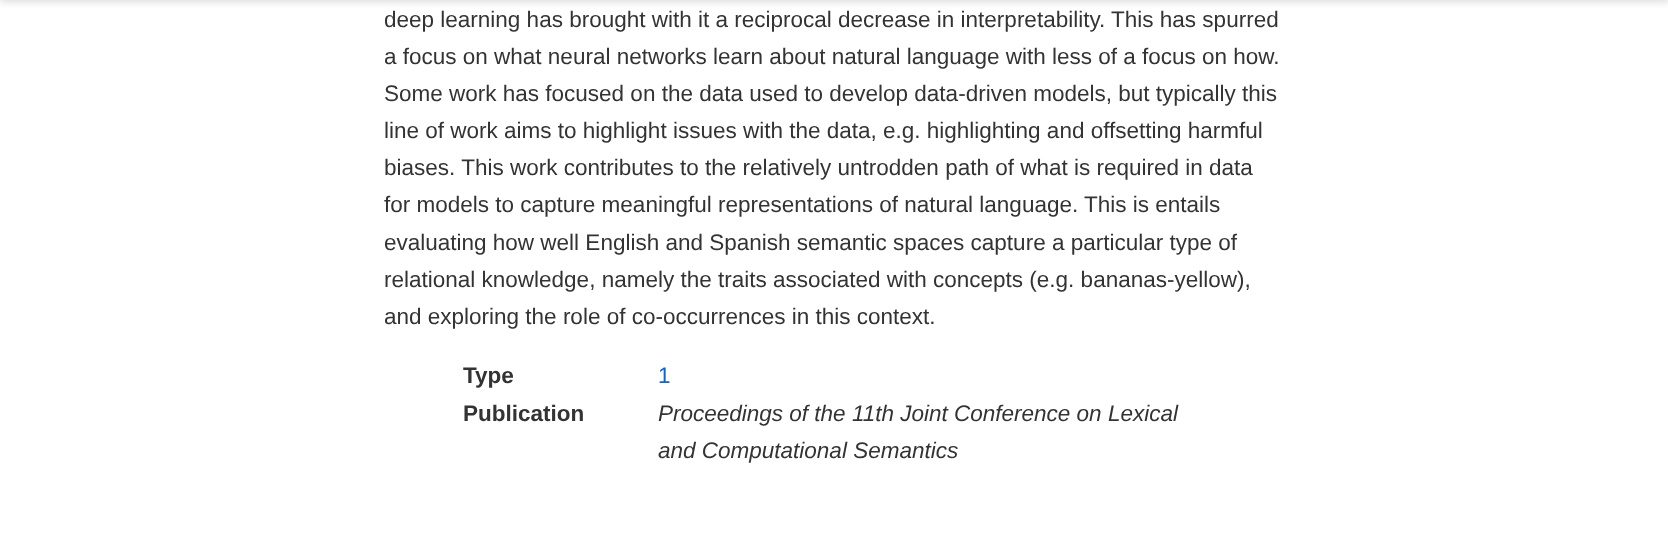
(async () => {
    const canvas = document.querySelector("canvas");
    canvas.width = 1668;
    canvas.height = 542;
    const context = canvas.getContext("2d");
    context.miterLimit = 4;
    context.fontKerning = "normal";
    function write(s, x, y, font, color) {
        context.font = font;
        context.fillStyle = color;
        context.fillText(s, x, y);
    }
    function block(x, y, w, h, color) {
        context.fillStyle = color;
        context.fillRect(x, y, w, h);
    }

    block(0, 0, 1668, 542, "rgb(255, 255, 255)");
    context.fillStyle = "rgba(0, 0, 0, 0.11)";
    context.filter = "blur(3px)";
    context.beginPath();
    context.rect(0, -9, 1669, 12);
    context.fill();
    context.filter = "none";
    write("deep learning has brought with it a reciprocal decrease in interpretability. This has spurred", 384, 27, "22.5px Liberation Sans", "rgb(51, 51, 51)");
    write("a focus on what neural networks learn about natural language with less of a focus on how.", 384, 64, "22.5px Liberation Sans", "rgb(51, 51, 51)");
    write("Some work has focused on the data used to develop data-driven models, but typically this", 384, 101, "22.5px Liberation Sans", "rgb(51, 51, 51)");
    write("line of work aims to highlight issues with the data, e.g. highlighting and offsetting harmful", 384, 138, "22.5px Liberation Sans", "rgb(51, 51, 51)");
    write("biases. This work contributes to the relatively untrodden path of what is required in data", 384, 175, "22.5px Liberation Sans", "rgb(51, 51, 51)");
    write("for models to capture meaningful representations of natural language. This is entails", 384, 212, "22.5px Liberation Sans", "rgb(51, 51, 51)");
    write("evaluating how well English and Spanish semantic spaces capture a particular type of", 384, 250, "22.5px Liberation Sans", "rgb(51, 51, 51)");
    write("relational knowledge, namely the traits associated with concepts (e.g. bananas-yellow),", 384, 287, "22.5px Liberation Sans", "rgb(51, 51, 51)");
    write("and exploring the role of co-occurrences in this context.", 384, 324, "22.5px Liberation Sans", "rgb(51, 51, 51)");
    write("Type", 463, 383, "bold 22.5px Liberation Sans", "rgb(51, 51, 51)");
    write("1", 658, 383, "22.5px Liberation Sans", "rgb(21, 101, 192)");
    write("Publication", 463, 421, "bold 22.5px Liberation Sans", "rgb(51, 51, 51)");
    write("Proceedings of the 11th Joint Conference on Lexical", 658, 421, "italic 22.5px Liberation Sans", "rgb(51, 51, 51)");
    write("and Computational Semantics", 658, 458, "italic 22.5px Liberation Sans", "rgb(51, 51, 51)");
})();
